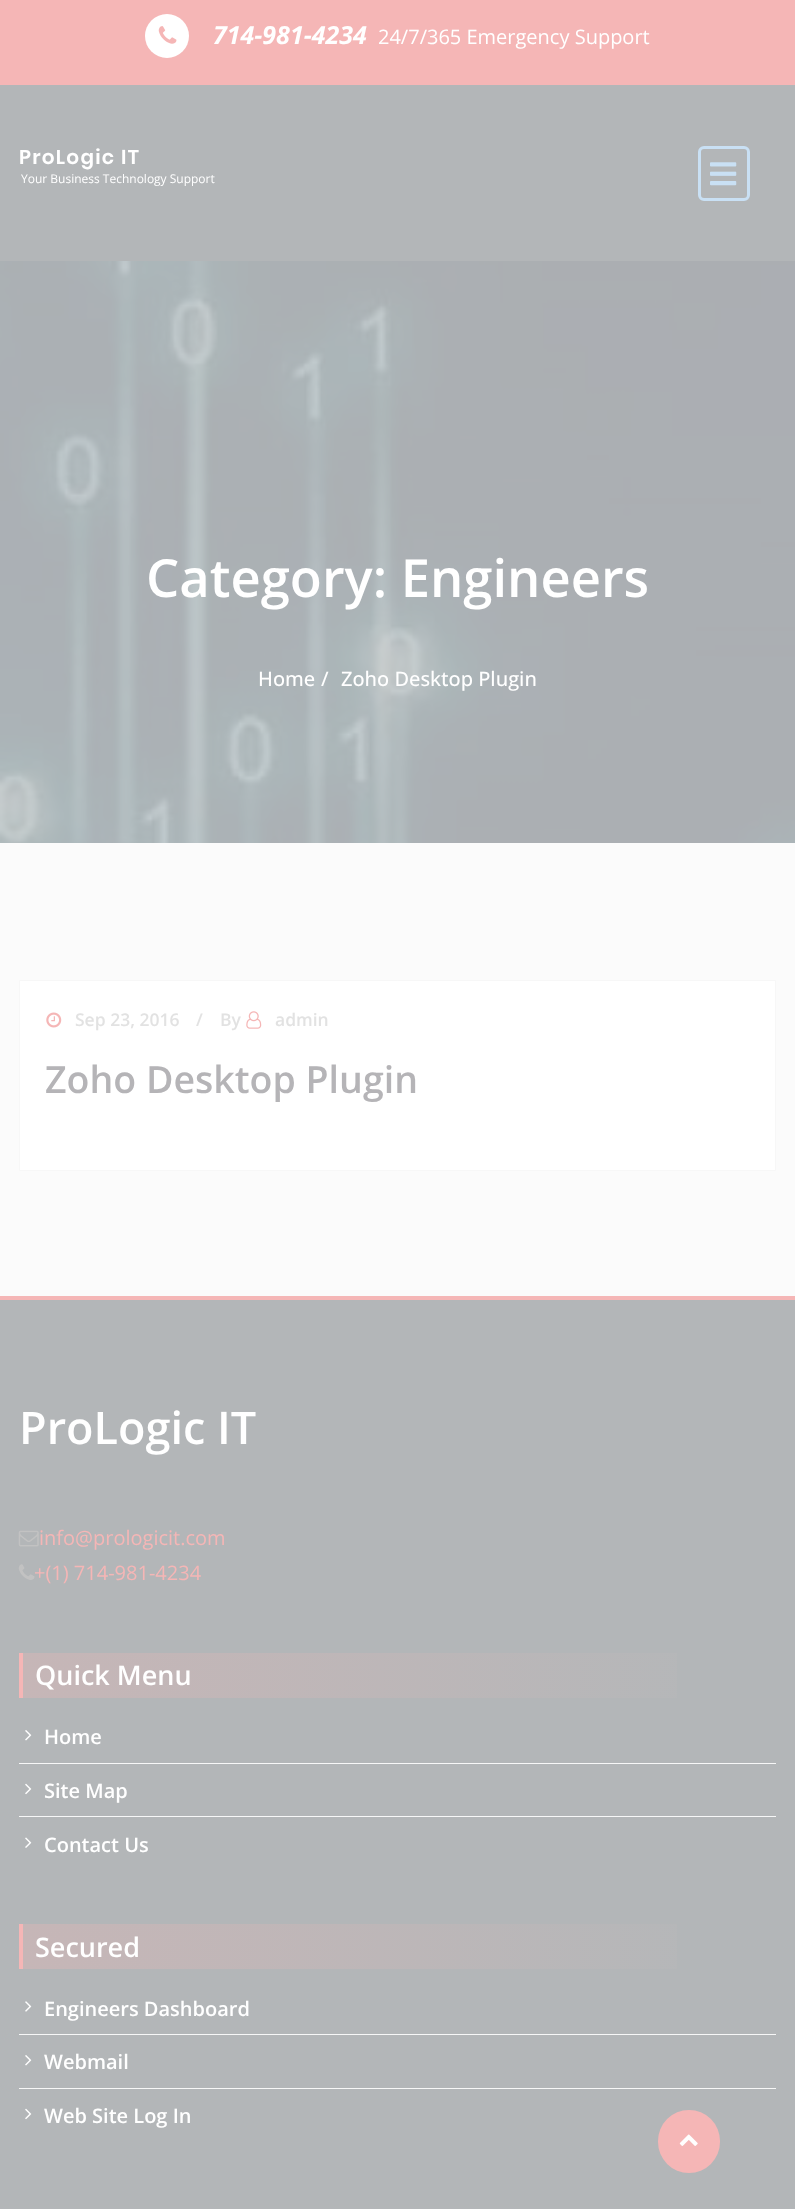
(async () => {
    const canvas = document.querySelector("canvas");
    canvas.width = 795;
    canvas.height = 2209;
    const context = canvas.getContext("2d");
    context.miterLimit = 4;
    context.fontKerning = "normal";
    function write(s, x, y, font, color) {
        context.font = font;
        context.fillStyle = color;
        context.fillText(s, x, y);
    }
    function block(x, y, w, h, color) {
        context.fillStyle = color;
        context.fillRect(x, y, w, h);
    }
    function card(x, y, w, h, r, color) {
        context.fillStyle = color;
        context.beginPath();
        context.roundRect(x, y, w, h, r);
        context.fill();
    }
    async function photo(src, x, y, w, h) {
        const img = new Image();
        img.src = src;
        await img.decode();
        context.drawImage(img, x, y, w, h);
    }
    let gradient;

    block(0, 0, 795, 2209, "rgb(245, 182, 182)");
    context.fillStyle = "rgb(255, 255, 255)";
    context.beginPath();
    context.arc(167, 36, 22, 0, Math.PI * 2);
    context.fill();
    await photo("media/1.png", 158, 26, 19, 18);
    write("714-981-4234", 213, 44, "italic bold 25px Open Sans", "rgb(255, 255, 255)");
    write("24/7/365 Emergency Support", 378, 44, "20px Open Sans", "rgb(255, 255, 255)");
    block(0, 85, 795, 176, "rgb(179, 182, 184)");
    context.letterSpacing = "1.25px";
    write("ProLogic IT", 19, 164, "600 20px Poppins", "rgb(255, 255, 255)");
    context.letterSpacing = "0px";
    write("Your Business Technology Support", 21, 183, "12px Open Sans", "rgb(255, 255, 255)");
    context.beginPath();
    context.roundRect(699.5, 147.5, 49, 52, 4.5);
    context.strokeStyle = "rgb(201, 224, 244)";
    context.lineWidth = 3;
    context.stroke();
    await photo("media/2.png", 710, 162, 27, 24);
    await photo("media/3.png", 0, 261, 795, 582);
    write("Category: Engineers", 146, 597, "600 52.5px Open Sans", "rgb(255, 255, 255)");
    write("Home", 258, 686, "500 20px Open Sans", "rgb(255, 255, 255)");
    write("/", 321, 686, "500 20px Open Sans", "rgb(255, 255, 255)");
    write("Zoho Desktop Plugin", 341, 686, "500 20px Open Sans", "rgb(255, 255, 255)");
    block(0, 843, 795, 453, "rgb(251, 251, 251)");
    context.fillStyle = "rgb(255, 255, 255)";
    context.beginPath();
    context.rect(19.5, 980.5, 756, 190);
    context.fill();
    context.strokeStyle = "rgb(247, 247, 247)";
    context.lineWidth = 1;
    context.stroke();
    await photo("media/4.png", 46, 1012, 16, 16);
    write("Sep 23, 2016", 75, 1026, "600 17.5px Open Sans", "rgb(226, 226, 226)");
    write("/", 196, 1026, "600 17.5px Open Sans", "rgb(226, 226, 226)");
    write("By", 220, 1026, "600 17.5px Open Sans", "rgb(226, 226, 226)");
    await photo("media/5.png", 246, 1011, 16, 18);
    write("admin", 275, 1026, "600 17.5px Open Sans", "rgb(226, 226, 226)");
    write("Zoho Desktop Plugin", 45, 1093, "600 37.5px Open Sans", "rgb(181, 180, 183)");
    block(0, 1300, 795, 909, "rgb(179, 182, 184)");
    write("ProLogic IT", 19, 1444, "600 45px Open Sans", "rgb(255, 255, 255)");
    await photo("media/6.png", 18, 1530, 21, 17);
    write("info@prologicit.com", 39, 1545, "20px Open Sans", "rgb(245, 182, 182)");
    await photo("media/7.png", 18, 1564, 17, 16);
    write("+(1) 714-981-4234", 34, 1580, "20px Open Sans", "rgb(245, 182, 182)");
    gradient = context.createLinearGradient(23, 1675, 776, 1675);
    gradient.addColorStop(0, "rgb(198, 182, 183)");
    gradient.addColorStop(1, "rgb(179, 183, 185)");
    context.fillStyle = gradient;
    context.fillRect(23, 1653, 654, 45);
    block(19, 1653, 4, 45, "rgb(245, 182, 182)");
    write("Quick Menu", 35, 1685, "600 27px Open Sans", "rgb(255, 255, 255)");
    block(19, 1763, 757, 1, "rgb(247, 247, 247)");
    await photo("media/8.png", 25, 1730, 7, 11);
    write("Home", 44, 1744, "600 20px Open Sans", "rgb(255, 255, 255)");
    block(19, 1816, 757, 1, "rgb(247, 247, 247)");
    await photo("media/9.png", 25, 1783, 7, 12);
    write("Site Map", 44, 1798, "600 20px Open Sans", "rgb(255, 255, 255)");
    await photo("media/10.png", 25, 1837, 7, 11);
    write("Contact Us", 44, 1852, "600 20px Open Sans", "rgb(255, 255, 255)");
    gradient = context.createLinearGradient(23, 1946, 776, 1946);
    gradient.addColorStop(0, "rgb(198, 182, 183)");
    gradient.addColorStop(1, "rgb(179, 183, 185)");
    context.fillStyle = gradient;
    context.fillRect(23, 1924, 654, 45);
    block(19, 1924, 4, 45, "rgb(245, 182, 182)");
    write("Secured", 35, 1957, "600 27px Open Sans", "rgb(255, 255, 255)");
    block(19, 2034, 757, 1, "rgb(247, 247, 247)");
    await photo("media/11.png", 25, 2001, 7, 11);
    write("Engineers Dashboard", 44, 2016, "600 20px Open Sans", "rgb(255, 255, 255)");
    block(19, 2088, 757, 1, "rgb(247, 247, 247)");
    await photo("media/8.png", 25, 2055, 7, 11);
    write("Webmail", 44, 2069, "600 20px Open Sans", "rgb(255, 255, 255)");
    await photo("media/9.png", 25, 2108, 7, 12);
    write("Web Site Log In", 44, 2123, "600 20px Open Sans", "rgb(255, 255, 255)");
    card(658, 2110, 62, 63, 31, "rgb(245, 182, 182)");
    await photo("media/12.png", 679, 2134, 19, 12);
})();
